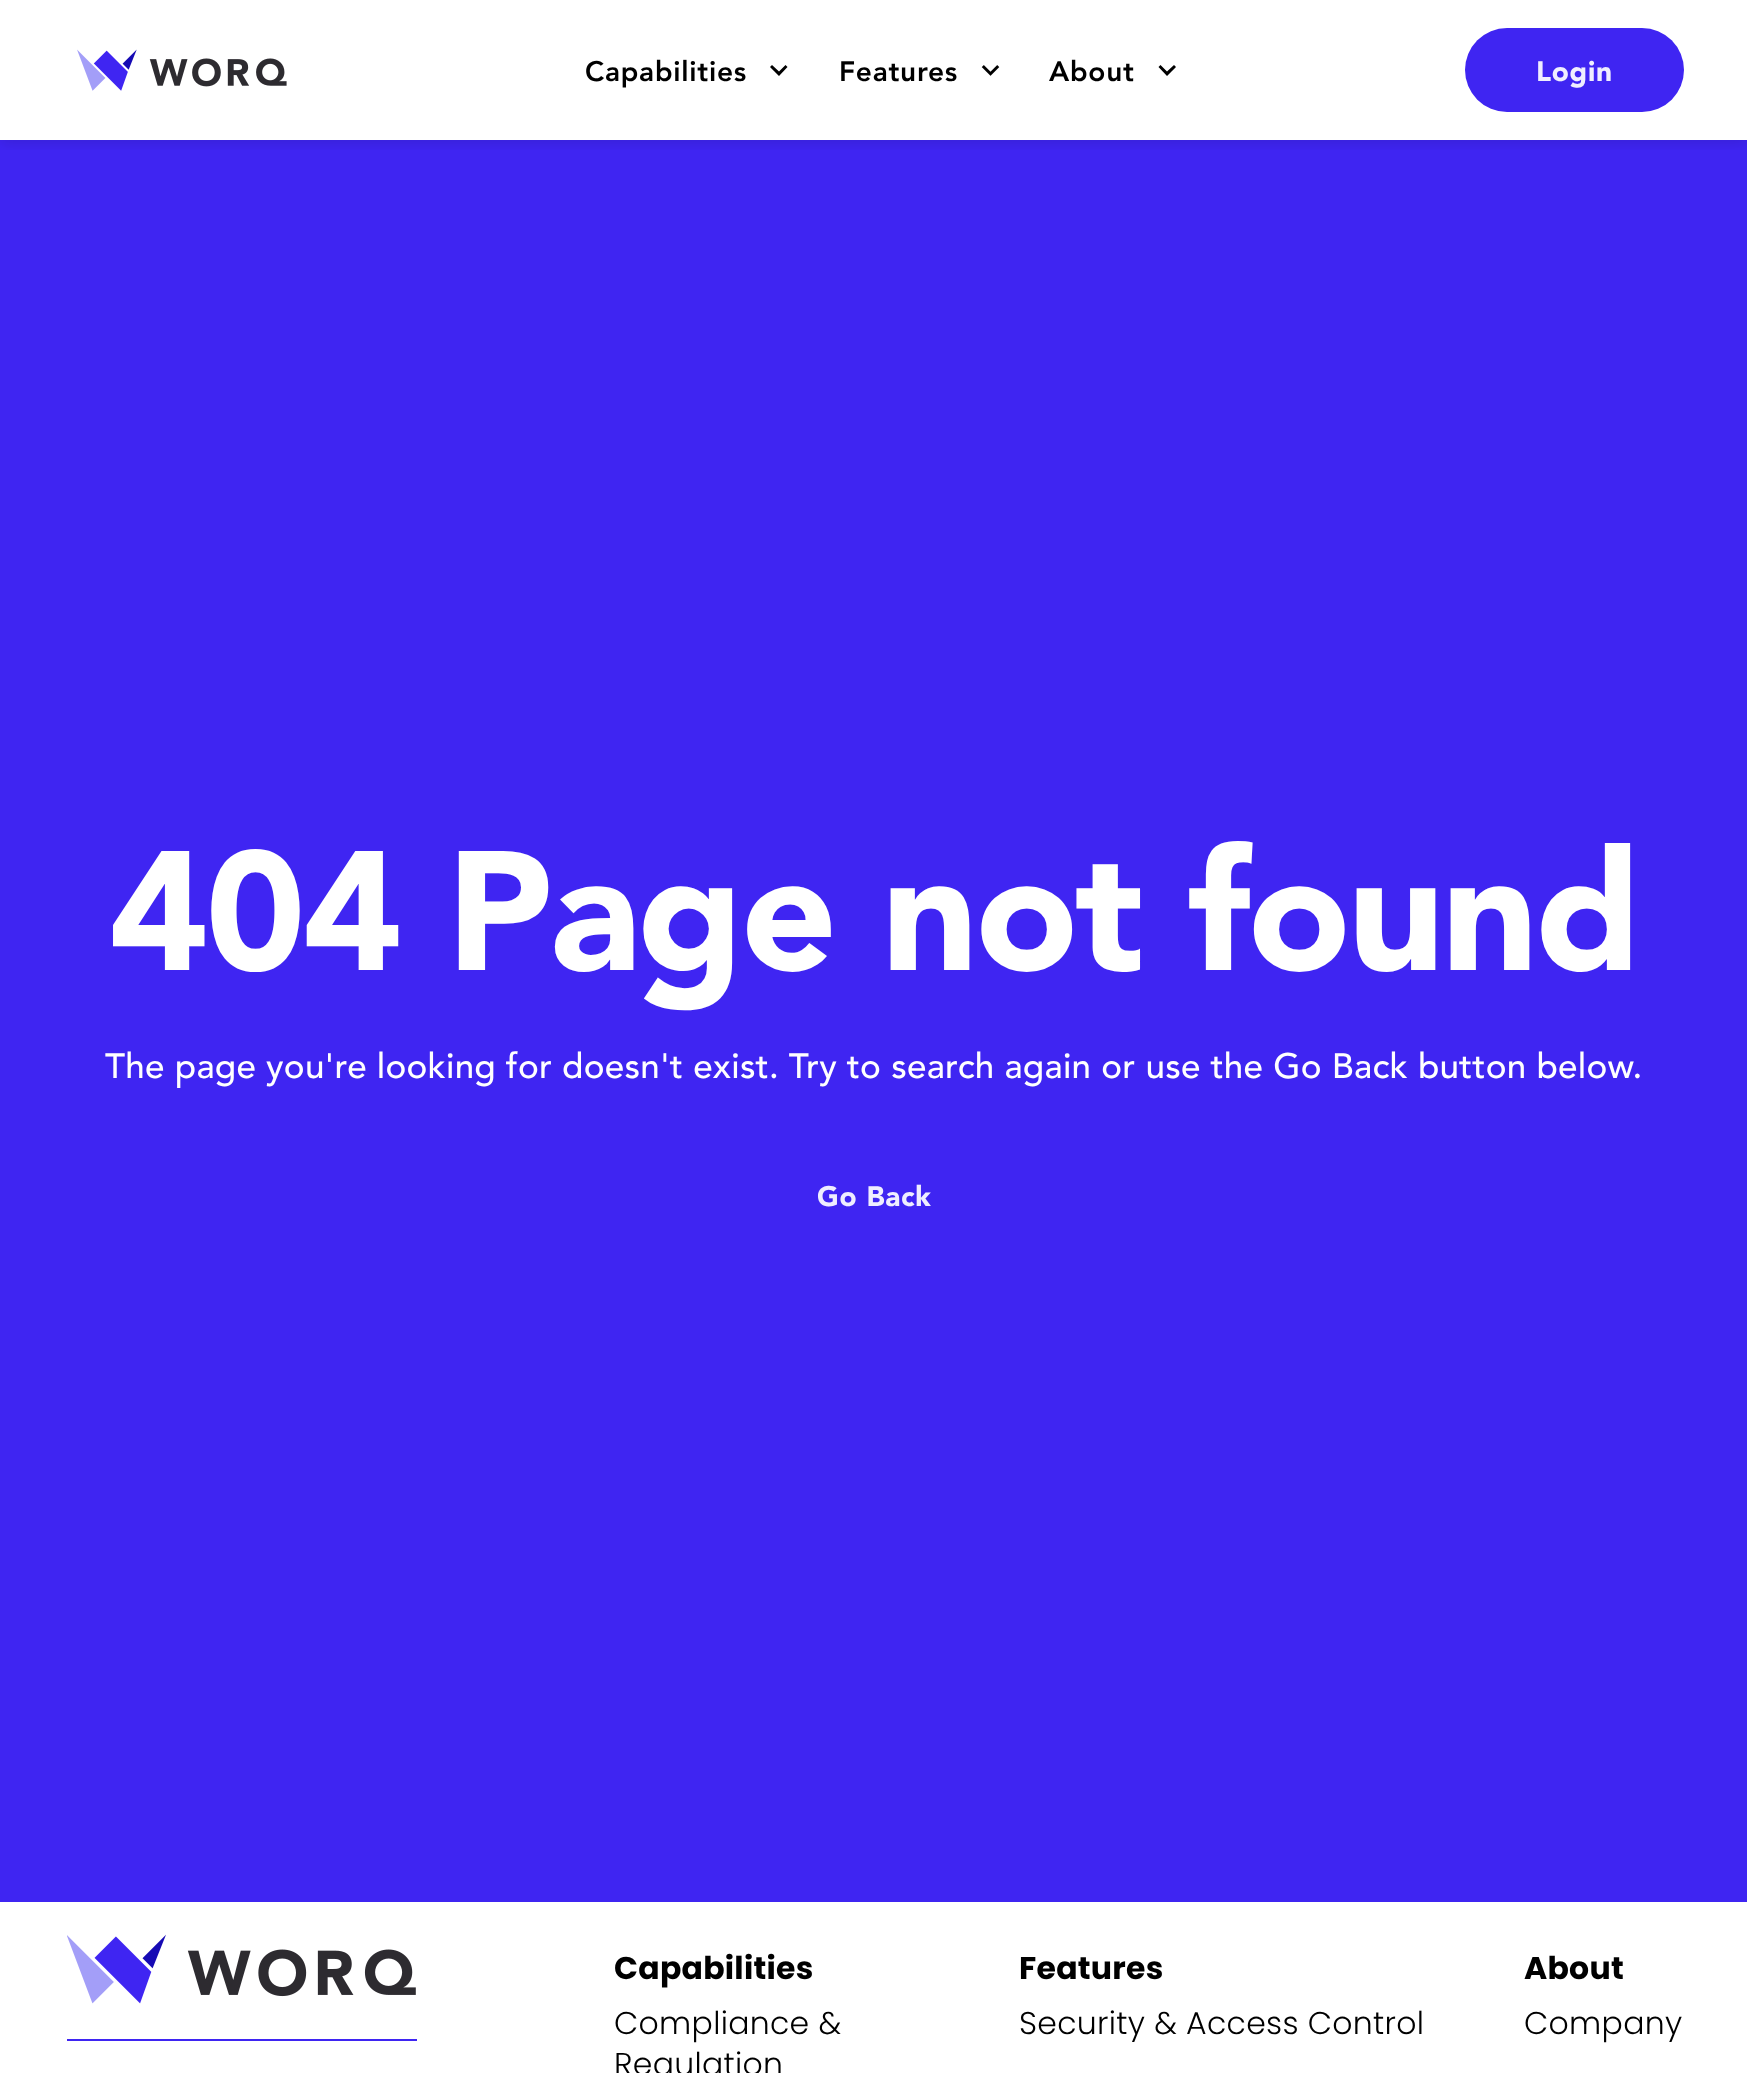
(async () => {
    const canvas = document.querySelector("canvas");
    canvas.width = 1747;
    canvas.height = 2073;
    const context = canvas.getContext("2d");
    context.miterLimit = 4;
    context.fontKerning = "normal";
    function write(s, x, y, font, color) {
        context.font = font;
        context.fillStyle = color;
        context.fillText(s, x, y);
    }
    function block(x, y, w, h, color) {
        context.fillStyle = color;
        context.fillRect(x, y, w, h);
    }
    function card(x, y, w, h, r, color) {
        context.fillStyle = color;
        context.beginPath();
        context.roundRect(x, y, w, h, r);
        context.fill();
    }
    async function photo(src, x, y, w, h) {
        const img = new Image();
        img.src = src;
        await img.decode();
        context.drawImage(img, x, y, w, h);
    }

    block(0, 0, 1747, 2073, "rgb(255, 255, 255)");
    block(0, 140, 1747, 1762, "rgb(63, 37, 242)");
    context.save();
    context.beginPath();
    context.rect(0, 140, 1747, 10);
    context.clip();
    context.fillStyle = "rgba(0, 0, 0, 0.1)";
    context.filter = "blur(7px)";
    context.beginPath();
    context.rect(0, 4, 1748, 140);
    context.fill();
    context.filter = "none";
    context.restore();
    await photo("media/1.png", 77, 49, 210, 42);
    context.letterSpacing = "0.75px";
    write("Capabilities", 585, 81, "900 28px 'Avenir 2'", "rgb(0, 0, 0)");
    context.beginPath();
    context.moveTo(772, 65);
    context.lineTo(779, 71.5);
    context.lineTo(785.5, 65);
    context.lineTo(787.5, 67);
    context.lineTo(779, 76);
    context.lineTo(770, 67);
    context.closePath();
    context.fill();
    write("Features", 839, 81, "900 28px 'Avenir 2'", "rgb(0, 0, 0)");
    await photo("media/2.png", 981, 65, 19, 11);
    write("About", 1049, 81, "900 28px 'Avenir 2'", "rgb(0, 0, 0)");
    context.beginPath();
    context.moveTo(1160.5, 65);
    context.lineTo(1167, 71.5);
    context.lineTo(1174, 65);
    context.lineTo(1176, 67);
    context.lineTo(1167, 76);
    context.lineTo(1158.5, 67);
    context.closePath();
    context.fill();
    card(1465, 28, 219, 84, 42, "rgb(63, 37, 242)");
    write("Login", 1536, 81, "900 28px Avenir", "rgb(239, 238, 255)");
    context.letterSpacing = "-2.6px";
    write("404 Page not found", 109, 970, "900 168px Avenir", "rgb(255, 255, 255)");
    context.letterSpacing = "0.25px";
    write("The page you're looking for doesn't exist. Try to search again or use the Go Back button below.", 105, 1078, "500 35px Avenir", "rgb(255, 255, 255)");
    context.letterSpacing = "0.75px";
    write("Go Back", 817, 1206, "900 28px Avenir", "rgb(239, 238, 255)");
    await photo("media/3.png", 67, 1934, 349, 70);
    block(67, 2039, 350, 2, "rgb(63, 37, 242)");
    context.letterSpacing = "0.25px";
    write("Capabilities", 614, 1979, "bold 31.5px Poppins", "rgb(0, 0, 0)");
    context.letterSpacing = "0.3px";
    write("Compliance &", 614, 2034, "300 31.5px Poppins", "rgb(0, 0, 0)");
    write("Regulation", 614, 2075, "300 31.5px Poppins", "rgb(0, 0, 0)");
    context.letterSpacing = "0.25px";
    write("Features", 1019, 1979, "bold 31.5px Poppins", "rgb(0, 0, 0)");
    context.letterSpacing = "0.3px";
    write("Security & Access Control", 1019, 2034, "300 31.5px Poppins", "rgb(0, 0, 0)");
    context.letterSpacing = "0.25px";
    write("About", 1524, 1979, "bold 31.5px Poppins", "rgb(0, 0, 0)");
    context.letterSpacing = "0.3px";
    write("Company", 1524, 2034, "300 31.5px Poppins", "rgb(0, 0, 0)");
})();
